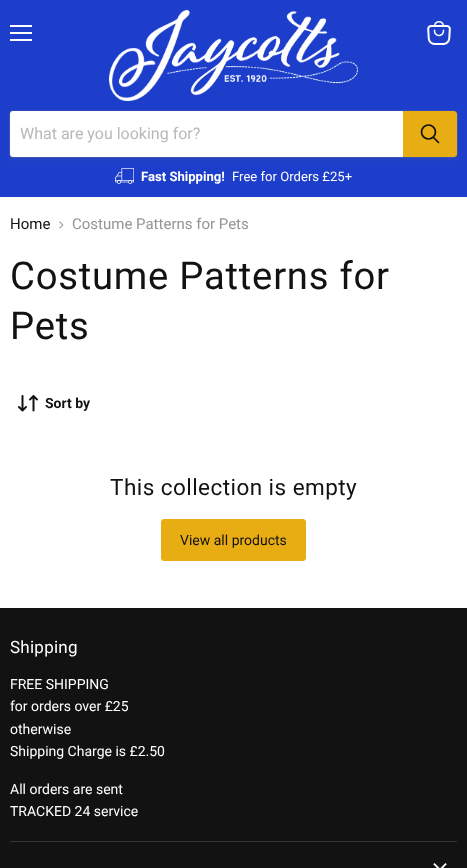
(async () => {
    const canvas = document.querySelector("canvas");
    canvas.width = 467;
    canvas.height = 868;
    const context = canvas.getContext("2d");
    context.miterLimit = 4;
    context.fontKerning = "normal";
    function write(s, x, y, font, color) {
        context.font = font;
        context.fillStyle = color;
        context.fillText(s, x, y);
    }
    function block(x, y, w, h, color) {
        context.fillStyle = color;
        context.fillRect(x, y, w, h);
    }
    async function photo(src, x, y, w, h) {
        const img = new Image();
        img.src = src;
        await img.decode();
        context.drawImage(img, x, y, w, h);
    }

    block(0, 0, 467, 868, "rgb(255, 255, 255)");
    block(0, 0, 467, 197, "rgb(28, 62, 202)");
    block(10, 25, 22, 2, "rgb(255, 255, 255)");
    block(10, 32, 22, 2, "rgb(255, 255, 255)");
    block(10, 39, 22, 2, "rgb(255, 255, 255)");
    await photo("media/1.png", 427, 21, 24, 24);
    await photo("media/2.png", 109, 10, 249, 91);
    context.fillStyle = "rgba(128, 128, 128, 0.11)";
    context.filter = "blur(1.5px)";
    context.beginPath();
    context.roundRect(9, 112, 449, 48, 4);
    context.fill();
    context.filter = "none";
    context.beginPath();
    context.roundRect(9.5, 110.5, 448, 47, 3.5);
    context.strokeStyle = "rgba(128, 128, 128, 0.2)";
    context.stroke();
    context.fillStyle = "rgb(255, 255, 255)";
    context.beginPath();
    context.roundRect(10, 111, 393, 46, [3, 0, 0, 3]);
    context.fill();
    write("What are you looking for?", 20, 139, "16px Roboto", "rgb(184, 184, 184)");
    context.fillStyle = "rgb(233, 173, 20)";
    context.beginPath();
    context.roundRect(403.5, 111.5, 53, 45, [0, 2.5, 2.5, 0]);
    context.fill();
    context.strokeStyle = "rgb(233, 173, 20)";
    context.stroke();
    context.beginPath();
    context.moveTo(438.5, 142.5);
    context.lineTo(433.5, 137.5);
    context.strokeStyle = "rgb(18, 18, 18)";
    context.lineWidth = 1.7;
    context.lineCap = "round";
    context.stroke();
    context.beginPath();
    context.arc(428.5, 132, 7, 0, Math.PI * 2);
    context.stroke();
    await photo("media/3.png", 115, 168, 19, 16);
    write("Fast Shipping!", 141, 181, "bold 13.1px Roboto", "rgb(255, 255, 255)");
    write("Free for Orders £25+", 232, 181, "13.1px Roboto", "rgb(255, 255, 255)");
    write("Home", 10, 229, "15px Roboto", "rgb(18, 18, 18)");
    await photo("media/4.png", 59, 221, 5, 8);
    write("Costume Patterns for Pets", 72, 229, "15px Roboto", "rgb(148, 148, 148)");
    context.letterSpacing = "0.75px";
    write("Costume Patterns for", 10, 289, "38.25px Roboto", "rgb(18, 18, 18)");
    write("Pets", 10, 339, "38.25px Roboto", "rgb(18, 18, 18)");
    await photo("media/5.png", 18, 395, 20, 17);
    context.letterSpacing = "0px";
    write("Sort by", 45, 408, "bold 14px Roboto", "rgb(18, 18, 18)");
    context.letterSpacing = "0.45px";
    write("This collection is empty", 110, 495, "22.5px Roboto", "rgb(18, 18, 18)");
    context.fillStyle = "rgb(233, 173, 20)";
    context.beginPath();
    context.roundRect(161.5, 519.5, 144, 41, 2.5);
    context.fill();
    context.strokeStyle = "rgb(233, 173, 20)";
    context.lineWidth = 1;
    context.stroke();
    context.letterSpacing = "0px";
    write("View all products", 180, 545, "14px Roboto", "rgb(18, 18, 18)");
    block(0, 608, 467, 260, "rgb(18, 18, 18)");
    block(10, 841, 447, 1, "rgb(54, 54, 54)");
    context.letterSpacing = "0.25px";
    write("Shipping", 10, 653, "17px Roboto", "rgb(255, 255, 255)");
    context.letterSpacing = "0px";
    write("FREE SHIPPING", 10, 689, "14px Roboto", "rgb(255, 255, 255)");
    write("for orders over £25", 10, 711, "14px Roboto", "rgb(255, 255, 255)");
    write("otherwise", 10, 734, "14px Roboto", "rgb(255, 255, 255)");
    write("Shipping Charge is £2.50", 10, 756, "14px Roboto", "rgb(255, 255, 255)");
    write("All orders are sent", 10, 794, "14px Roboto", "rgb(255, 255, 255)");
    write("TRACKED 24 service", 10, 816, "14px Roboto", "rgb(255, 255, 255)");
    await photo("media/6.png", 433, 863, 14, 5);
})();
